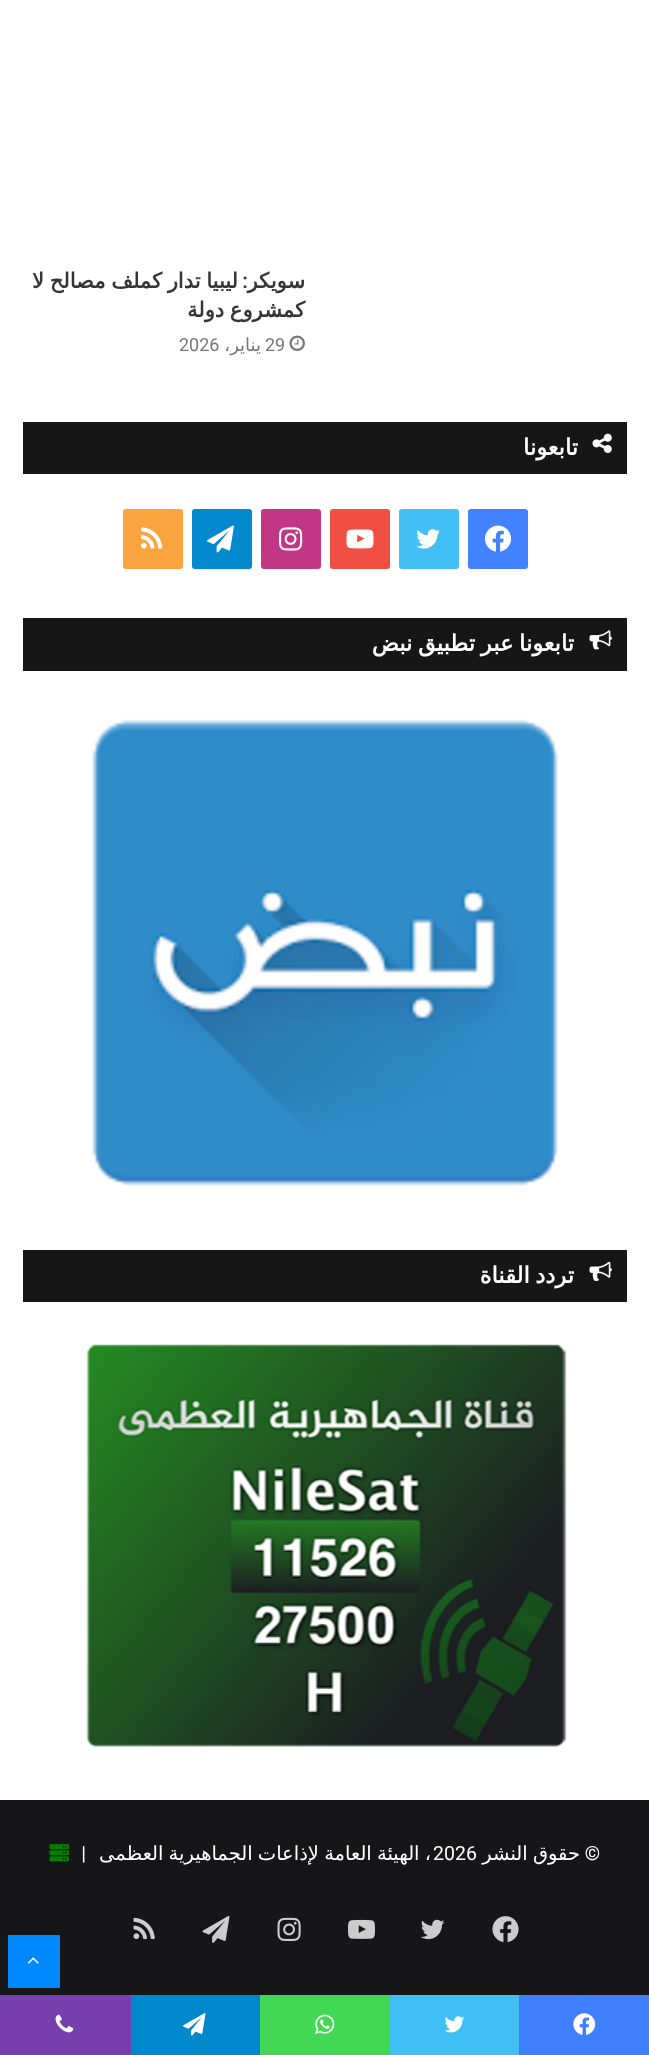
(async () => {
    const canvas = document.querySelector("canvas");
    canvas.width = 649;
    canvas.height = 2055;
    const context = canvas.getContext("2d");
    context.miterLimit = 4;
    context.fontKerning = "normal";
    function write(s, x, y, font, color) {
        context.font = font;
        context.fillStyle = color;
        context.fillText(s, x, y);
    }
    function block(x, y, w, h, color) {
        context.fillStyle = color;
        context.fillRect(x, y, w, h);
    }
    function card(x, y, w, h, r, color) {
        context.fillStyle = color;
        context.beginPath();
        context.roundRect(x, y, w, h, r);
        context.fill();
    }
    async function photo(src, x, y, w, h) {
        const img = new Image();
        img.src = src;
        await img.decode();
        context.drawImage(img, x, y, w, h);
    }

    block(0, 0, 649, 2055, "rgb(255, 255, 255)");
    context.direction = "rtl";
    write(":", 248, 288, "600 21px Roboto", "rgb(53, 53, 53)");
    write("سويكر", 305, 288, "bold 21px DejaVu Sans", "rgb(53, 53, 53)");
    context.wordSpacing = "-1px";
    write("ليبيا تدار كملف مصالح لا", 238, 288, "bold 21px DejaVu Sans", "rgb(53, 53, 53)");
    write("كمشروع دولة", 305, 317, "bold 21px DejaVu Sans", "rgb(53, 53, 53)");
    await photo("media/1.png", 289, 335, 16, 16);
    context.wordSpacing = "0px";
    context.direction = "ltr";
    write("29", 265, 351, "18px Roboto", "rgb(119, 119, 119)");
    context.direction = "rtl";
    write("يناير،", 261, 351, "18px DejaVu Sans", "rgb(119, 119, 119)");
    context.direction = "ltr";
    write("2026", 179, 351, "18px Roboto", "rgb(119, 119, 119)");
    block(23, 422, 604, 52, "rgb(22, 22, 22)");
    await photo("media/2.png", 592, 433, 20, 20);
    context.direction = "rtl";
    write("تابعونا", 578, 455, "bold 22.5px DejaVu Sans", "rgb(255, 255, 255)");
    card(468, 509, 60, 60, 3, "rgb(66, 129, 255)");
    await photo("media/3.png", 484, 525, 28, 27);
    card(399, 509, 60, 60, 3, "rgb(66, 192, 245)");
    await photo("media/4.png", 416, 529, 24, 20);
    card(330, 509, 60, 60, 3, "rgb(239, 80, 67)");
    await photo("media/5.png", 346, 529, 28, 20);
    card(261, 509, 60, 60, 3, "rgb(194, 55, 133)");
    await photo("media/6.png", 279, 527, 24, 24);
    card(192, 509, 60, 60, 3, "rgb(3, 137, 205)");
    await photo("media/7.png", 207, 525, 27, 28);
    card(123, 509, 60, 60, 3, "rgb(250, 164, 63)");
    await photo("media/8.png", 141, 527, 22, 22);
    block(23, 618, 604, 53, "rgb(22, 22, 22)");
    await photo("media/9.png", 589, 630, 23, 20);
    context.wordSpacing = "-1.5px";
    write("تابعونا عبر تطبيق نبض", 574, 651, "bold 22.5px DejaVu Sans", "rgb(255, 255, 255)");
    await photo("media/10.png", 92, 719, 466, 467);
    block(23, 1250, 604, 52, "rgb(22, 22, 22)");
    await photo("media/11.png", 589, 1261, 23, 20);
    write("تردد القناة", 574, 1283, "bold 22.5px DejaVu Sans", "rgb(255, 255, 255)");
    await photo("media/12.png", 86, 1344, 481, 403);
    block(0, 1800, 649, 195, "rgb(22, 22, 25)");
    context.wordSpacing = "0px";
    write("©", 600, 1860, "19.5px Roboto", "rgb(255, 255, 255)");
    context.wordSpacing = "-1px";
    write("حقوق النشر", 580, 1860, "19.5px DejaVu Sans", "rgb(255, 255, 255)");
    context.wordSpacing = "0px";
    context.direction = "ltr";
    write("2026", 433, 1860, "19.5px Roboto", "rgb(255, 255, 255)");
    context.wordSpacing = "-1px";
    context.direction = "rtl";
    write("، الهيئة العامة لإذاعات الجماهيرية العظمى", 431, 1860, "19.5px DejaVu Sans", "rgb(255, 255, 255)");
    context.wordSpacing = "0px";
    write("|", 86, 1860, "19.5px Roboto", "rgb(255, 255, 255)");
    await photo("media/13.png", 49, 1844, 20, 18);
    await photo("media/14.png", 492, 1916, 27, 27);
    await photo("media/15.png", 420, 1919, 25, 21);
    await photo("media/16.png", 348, 1919, 27, 20);
    await photo("media/17.png", 277, 1917, 24, 24);
    await photo("media/18.png", 202, 1915, 28, 28);
    await photo("media/19.png", 133, 1917, 22, 23);
    block(8, 1935, 52, 53, "rgb(0, 136, 255)");
    await photo("media/20.png", 27, 1957, 12, 7);
    block(519, 1995, 130, 60, "rgb(64, 128, 255)");
    await photo("media/21.png", 573, 2013, 23, 22);
    block(390, 1995, 129, 60, "rgb(64, 191, 245)");
    await photo("media/22.png", 444, 2016, 21, 17);
    block(260, 1995, 130, 60, "rgb(67, 216, 84)");
    await photo("media/23.png", 315, 2014, 20, 20);
    block(131, 1995, 129, 60, "rgb(0, 136, 204)");
    await photo("media/24.png", 183, 2013, 23, 23);
    block(0, 1995, 131, 60, "rgb(119, 62, 173)");
    await photo("media/25.png", 55, 2014, 19, 19);
})();
